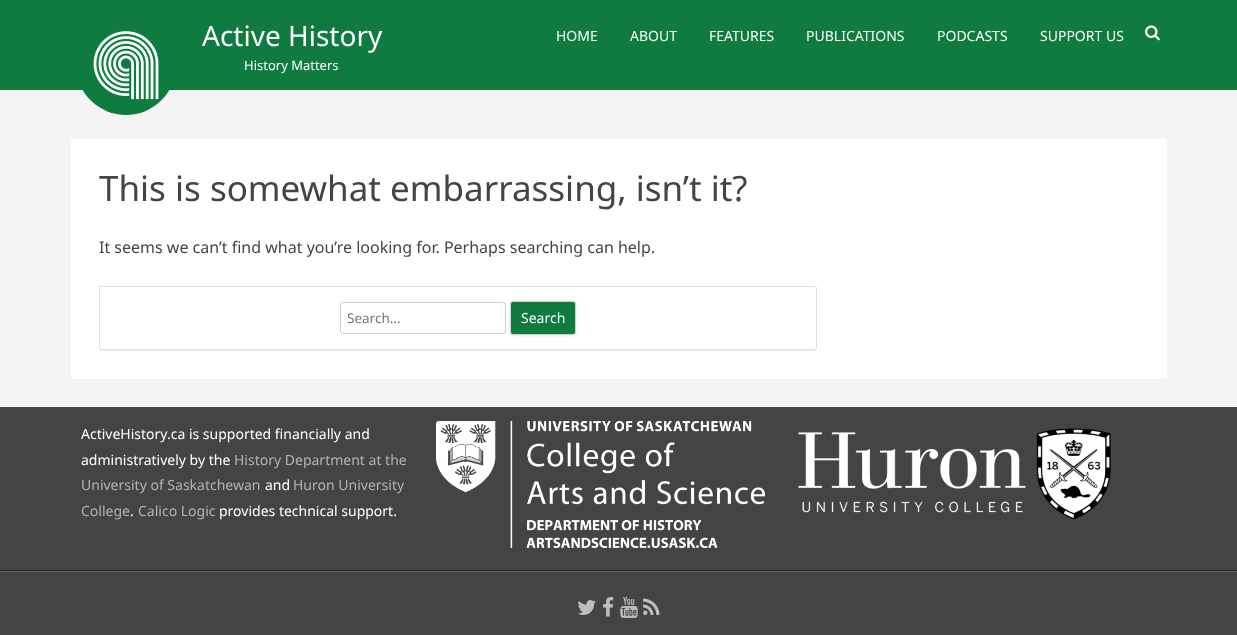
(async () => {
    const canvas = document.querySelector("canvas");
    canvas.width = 1237;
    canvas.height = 635;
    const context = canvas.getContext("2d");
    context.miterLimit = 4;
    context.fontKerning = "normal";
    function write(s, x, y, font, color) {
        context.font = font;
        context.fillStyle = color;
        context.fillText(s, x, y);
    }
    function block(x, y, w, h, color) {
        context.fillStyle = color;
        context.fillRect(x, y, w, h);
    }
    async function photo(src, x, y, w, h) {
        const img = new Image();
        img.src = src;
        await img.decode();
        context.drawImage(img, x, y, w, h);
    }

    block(0, 0, 1237, 635, "rgb(244, 244, 244)");
    block(0, 0, 1237, 90, "rgb(15, 123, 63)");
    await photo("media/1.png", 82, 31, 88, 84);
    write("Active History", 202, 46, "28px Noto Sans", "rgb(255, 255, 255)");
    write("History Matters", 244, 70, "13px Noto Sans", "rgb(255, 255, 255)");
    write("HOME", 556, 41, "14px Noto Sans", "rgb(255, 255, 255)");
    write("ABOUT", 630, 41, "14px Noto Sans", "rgb(255, 255, 255)");
    write("FEATURES", 709, 41, "14px Noto Sans", "rgb(255, 255, 255)");
    write("PUBLICATIONS", 806, 41, "14px Noto Sans", "rgb(255, 255, 255)");
    write("PODCASTS", 937, 41, "14px Noto Sans", "rgb(255, 255, 255)");
    write("SUPPORT US", 1040, 41, "14px Noto Sans", "rgb(255, 255, 255)");
    await photo("media/2.png", 1145, 25, 15, 16);
    block(71, 139, 1096, 240, "rgb(255, 255, 255)");
    block(99, 350, 718, 1, "rgb(237, 237, 237)");
    write("This is somewhat embarrassing, isn’t it?", 99, 201, "35px Noto Sans", "rgb(68, 68, 68)");
    write("It seems we can’t find what you’re looking for. Perhaps searching can help.", 99, 253, "16px Noto Sans", "rgb(68, 68, 68)");
    context.beginPath();
    context.roundRect(99.5, 286.5, 717, 63, 1.5);
    context.strokeStyle = "rgb(224, 224, 224)";
    context.stroke();
    context.beginPath();
    context.roundRect(340.5, 302.5, 165, 31, 2.5);
    context.strokeStyle = "rgb(204, 204, 204)";
    context.stroke();
    write("Search...", 347, 323, "13.5px Noto Sans", "rgb(117, 117, 117)");
    context.fillStyle = "rgba(64, 64, 64, 0.1)";
    context.filter = "blur(1px)";
    context.beginPath();
    context.roundRect(510, 302, 66, 34, 3);
    context.fill();
    context.filter = "none";
    context.fillStyle = "rgb(15, 123, 63)";
    context.beginPath();
    context.roundRect(510.5, 301.5, 65, 33, 2.5);
    context.fill();
    context.strokeStyle = "rgb(210, 210, 210)";
    context.stroke();
    write("Search", 521, 323, "14px Noto Sans", "rgb(255, 255, 255)");
    block(0, 407, 1237, 163, "rgb(68, 68, 68)");
    write("ActiveHistory.ca is supported financially and", 81, 439, "14px Noto Sans", "rgb(255, 255, 255)");
    write("administratively by the", 81, 465, "14px Noto Sans", "rgb(255, 255, 255)");
    write("History Department at the", 234, 465, "14px Noto Sans", "rgb(179, 179, 179)");
    write("University of Saskatchewan", 81, 490, "14px Noto Sans", "rgb(179, 179, 179)");
    write("and", 265, 490, "14px Noto Sans", "rgb(255, 255, 255)");
    write("Huron University", 293, 490, "14px Noto Sans", "rgb(179, 179, 179)");
    write("College", 81, 516, "14px Noto Sans", "rgb(179, 179, 179)");
    write(".", 130, 516, "14px Noto Sans", "rgb(255, 255, 255)");
    write("Calico Logic", 138, 516, "14px Noto Sans", "rgb(179, 179, 179)");
    write("provides technical support.", 219, 516, "14px Noto Sans", "rgb(255, 255, 255)");
    await photo("media/3.png", 436, 421, 329, 127);
    await photo("media/4.png", 798, 428, 313, 92);
    block(0, 570, 1237, 1, "rgb(34, 34, 34)");
    block(0, 571, 1237, 1, "rgb(102, 102, 102)");
    block(0, 572, 1237, 63, "rgb(68, 68, 68)");
    await photo("media/5.png", 577, 600, 19, 15);
    await photo("media/6.png", 603, 597, 11, 20);
    await photo("media/7.png", 620, 597, 18, 21);
    await photo("media/8.png", 643, 598, 17, 17);
})();
